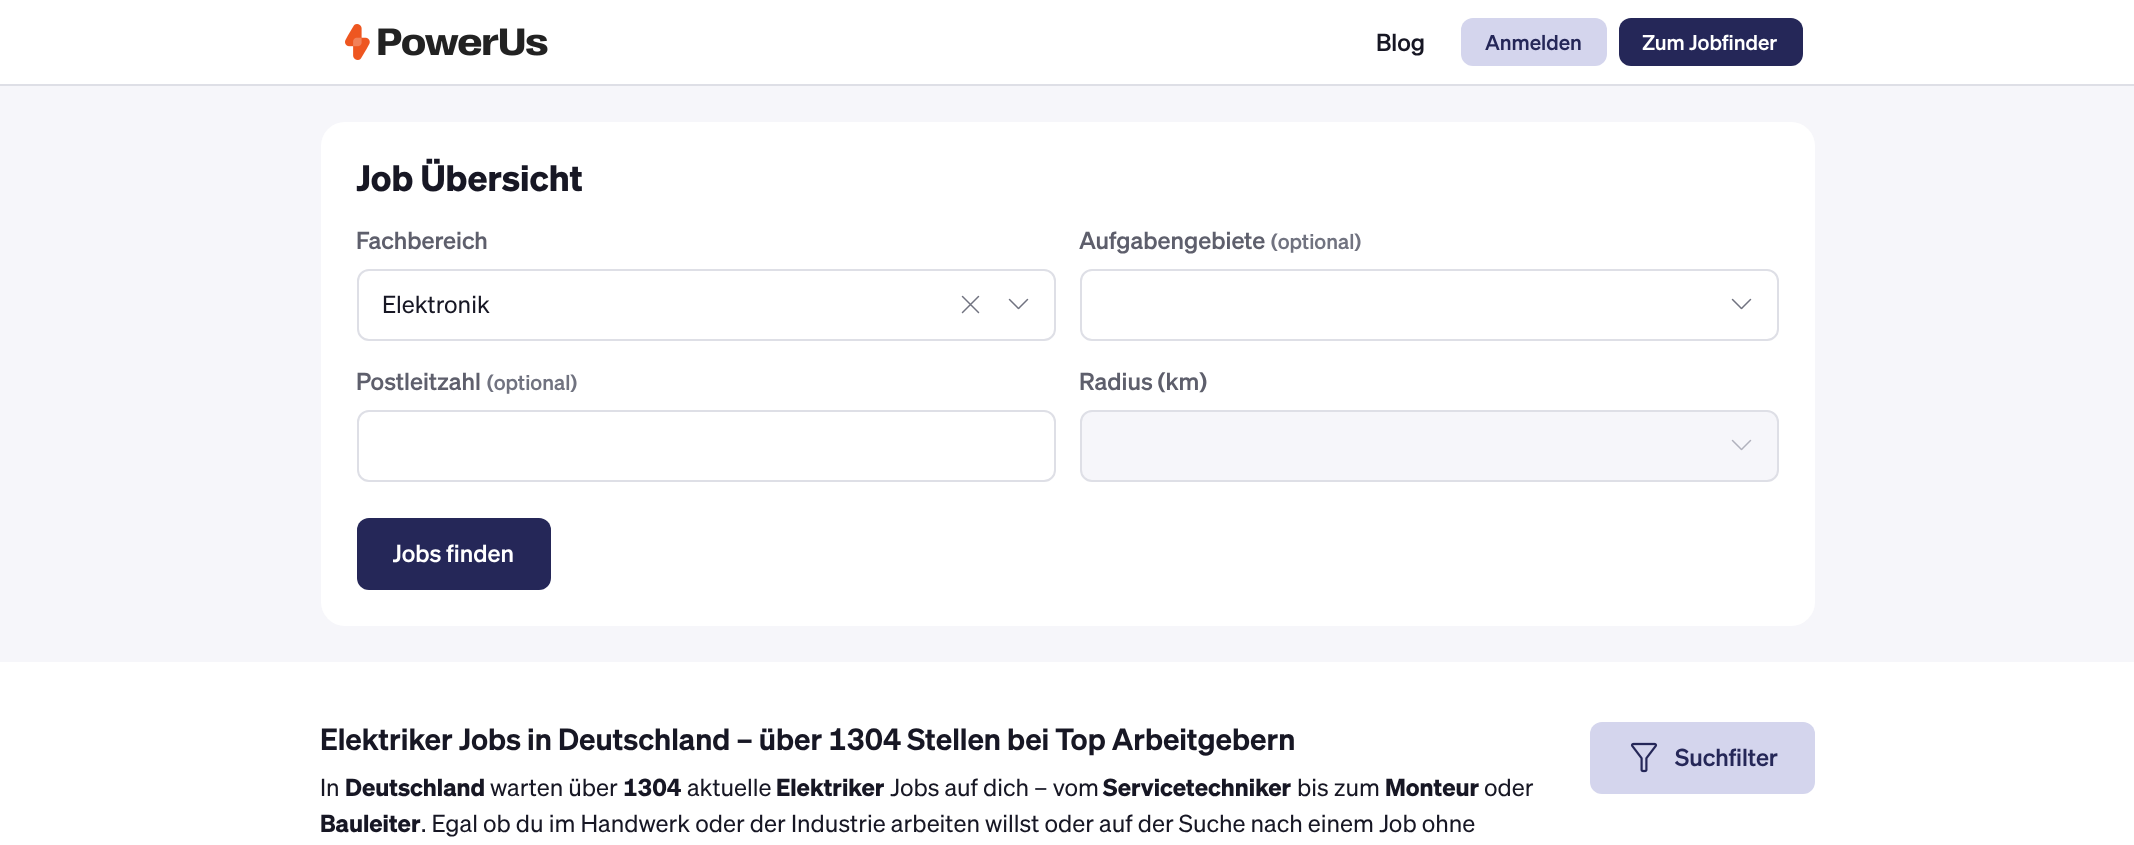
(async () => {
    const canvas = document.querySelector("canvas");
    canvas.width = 2134;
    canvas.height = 845;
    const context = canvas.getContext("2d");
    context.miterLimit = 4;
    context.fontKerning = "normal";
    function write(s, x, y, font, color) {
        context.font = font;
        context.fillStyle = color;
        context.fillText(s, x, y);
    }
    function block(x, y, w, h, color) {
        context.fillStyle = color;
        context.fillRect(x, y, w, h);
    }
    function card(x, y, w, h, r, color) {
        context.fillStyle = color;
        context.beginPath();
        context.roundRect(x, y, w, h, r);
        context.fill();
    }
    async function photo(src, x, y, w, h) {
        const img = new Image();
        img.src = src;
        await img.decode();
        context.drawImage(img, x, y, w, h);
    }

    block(0, 0, 2134, 845, "rgb(255, 255, 255)");
    block(0, 84, 2134, 2, "rgb(222, 223, 230)");
    await photo("media/1.png", 345, 24, 203, 36);
    write("Blog", 1376, 51, "500 24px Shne", "rgb(23, 23, 36)");
    card(1461, 18, 146, 48, 12, "rgb(212, 213, 237)");
    write("Anmelden", 1485, 50, "500 21px Shne", "rgb(37, 39, 88)");
    card(1619, 18, 184, 48, 12, "rgb(37, 39, 88)");
    write("Zum Jobfinder", 1642, 50, "500 21px Shne", "rgb(255, 255, 255)");
    block(0, 86, 2134, 576, "rgb(246, 246, 250)");
    card(321, 122, 1494, 504, 24, "rgb(255, 255, 255)");
    write("Job Übersicht", 356, 191, "bold 36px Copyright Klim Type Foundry", "rgb(23, 23, 36)");
    write("Fachbereich", 356, 249, "500 24px Shne", "rgb(94, 95, 108)");
    context.beginPath();
    context.roundRect(358, 270, 697, 70, 11);
    context.strokeStyle = "rgb(222, 223, 230)";
    context.lineWidth = 2;
    context.stroke();
    write("Elektronik", 382, 313, "24px Copyright Klim Type Foundry", "rgb(23, 23, 36)");
    context.beginPath();
    context.moveTo(962.5, 296.5);
    context.lineTo(978.5, 312.5);
    context.moveTo(978.5, 296.5);
    context.lineTo(962.5, 312.5);
    context.strokeStyle = "rgb(113, 115, 128)";
    context.lineWidth = 1.5;
    context.lineCap = "round";
    context.lineJoin = "round";
    context.stroke();
    context.beginPath();
    context.moveTo(1009.5, 299.5);
    context.lineTo(1017, 307);
    context.bezierCurveTo(1019, 309, 1018, 309, 1020, 307);
    context.lineTo(1027.5, 299.5);
    context.stroke();
    write("Aufgabengebiete", 1079, 249, "500 24px Shne", "rgb(94, 95, 108)");
    write("(optional)", 1271, 249, "500 21px Shne", "rgb(113, 115, 128)");
    context.beginPath();
    context.roundRect(1081, 270, 697, 70, 11);
    context.strokeStyle = "rgb(222, 223, 230)";
    context.lineWidth = 2;
    context.lineJoin = "miter";
    context.stroke();
    context.beginPath();
    context.moveTo(1732.5, 299.5);
    context.lineTo(1740, 307);
    context.bezierCurveTo(1742, 309, 1741, 309, 1743, 307);
    context.lineTo(1750.5, 299.5);
    context.strokeStyle = "rgb(113, 115, 128)";
    context.lineWidth = 1.5;
    context.lineJoin = "round";
    context.stroke();
    write("Postleitzahl", 356, 390, "500 24px Shne", "rgb(94, 95, 108)");
    write("(optional)", 487, 390, "500 21px Shne", "rgb(113, 115, 128)");
    context.beginPath();
    context.roundRect(358, 411, 697, 70, 11);
    context.strokeStyle = "rgb(222, 223, 230)";
    context.lineWidth = 2;
    context.lineJoin = "miter";
    context.stroke();
    write("Radius (km)", 1079, 390, "500 24px Shne", "rgb(94, 95, 108)");
    context.fillStyle = "rgb(246, 246, 250)";
    context.beginPath();
    context.roundRect(1081, 411, 697, 70, 11);
    context.fill();
    context.stroke();
    context.beginPath();
    context.moveTo(1732.5, 440.5);
    context.lineTo(1740, 448);
    context.bezierCurveTo(1742, 450, 1741, 450, 1743, 448);
    context.lineTo(1750.5, 440.5);
    context.strokeStyle = "rgb(177, 178, 189)";
    context.lineWidth = 1.5;
    context.lineJoin = "round";
    context.stroke();
    card(357, 518, 194, 72, 12, "rgb(37, 39, 88)");
    context.save();
    context.beginPath();
    context.rect(393, 536, 122, 36);
    context.clip();
    write("Jobs finden", 392, 562, "500 24px Shne", "rgb(255, 255, 255)");
    context.restore();
    write("Elektriker Jobs in Deutschland – über 1304 Stellen bei Top Arbeitgebern", 320, 750, "600 30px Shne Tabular", "rgb(23, 23, 36)");
    write("In", 320, 796, "24px Copyright Klim Type Foundry", "rgb(23, 23, 36)");
    write("Deutschland", 345, 796, "bold 24px Copyright Klim Type Foundry", "rgb(23, 23, 36)");
    write("warten über", 490, 796, "24px Copyright Klim Type Foundry", "rgb(23, 23, 36)");
    write("1304", 623, 796, "bold 24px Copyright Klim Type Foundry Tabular", "rgb(23, 23, 36)");
    write("aktuelle", 687, 796, "24px Copyright Klim Type Foundry", "rgb(23, 23, 36)");
    write("Elektriker", 776, 796, "bold 24px Copyright Klim Type Foundry", "rgb(23, 23, 36)");
    write("Jobs auf dich – vom", 890, 796, "24px Copyright Klim Type Foundry", "rgb(23, 23, 36)");
    write("Servicetechniker", 1103, 796, "bold 24px Copyright Klim Type Foundry", "rgb(23, 23, 36)");
    write("bis zum", 1297, 796, "24px Copyright Klim Type Foundry", "rgb(23, 23, 36)");
    write("Monteur", 1385, 796, "bold 24px Copyright Klim Type Foundry", "rgb(23, 23, 36)");
    write("oder", 1484, 796, "24px Copyright Klim Type Foundry", "rgb(23, 23, 36)");
    write("Bauleiter", 320, 832, "bold 24px Copyright Klim Type Foundry", "rgb(23, 23, 36)");
    write(". Egal ob du im Handwerk oder der Industrie arbeiten willst oder auf der Suche nach einem Job ohne", 421, 832, "24px Copyright Klim Type Foundry", "rgb(23, 23, 36)");
    card(1590, 722, 225, 72, 12, "rgb(212, 213, 237)");
    await photo("media/2.png", 1630, 742, 28, 31);
    write("Suchfilter", 1675, 766, "500 24px Shne", "rgb(37, 39, 88)");
})();
